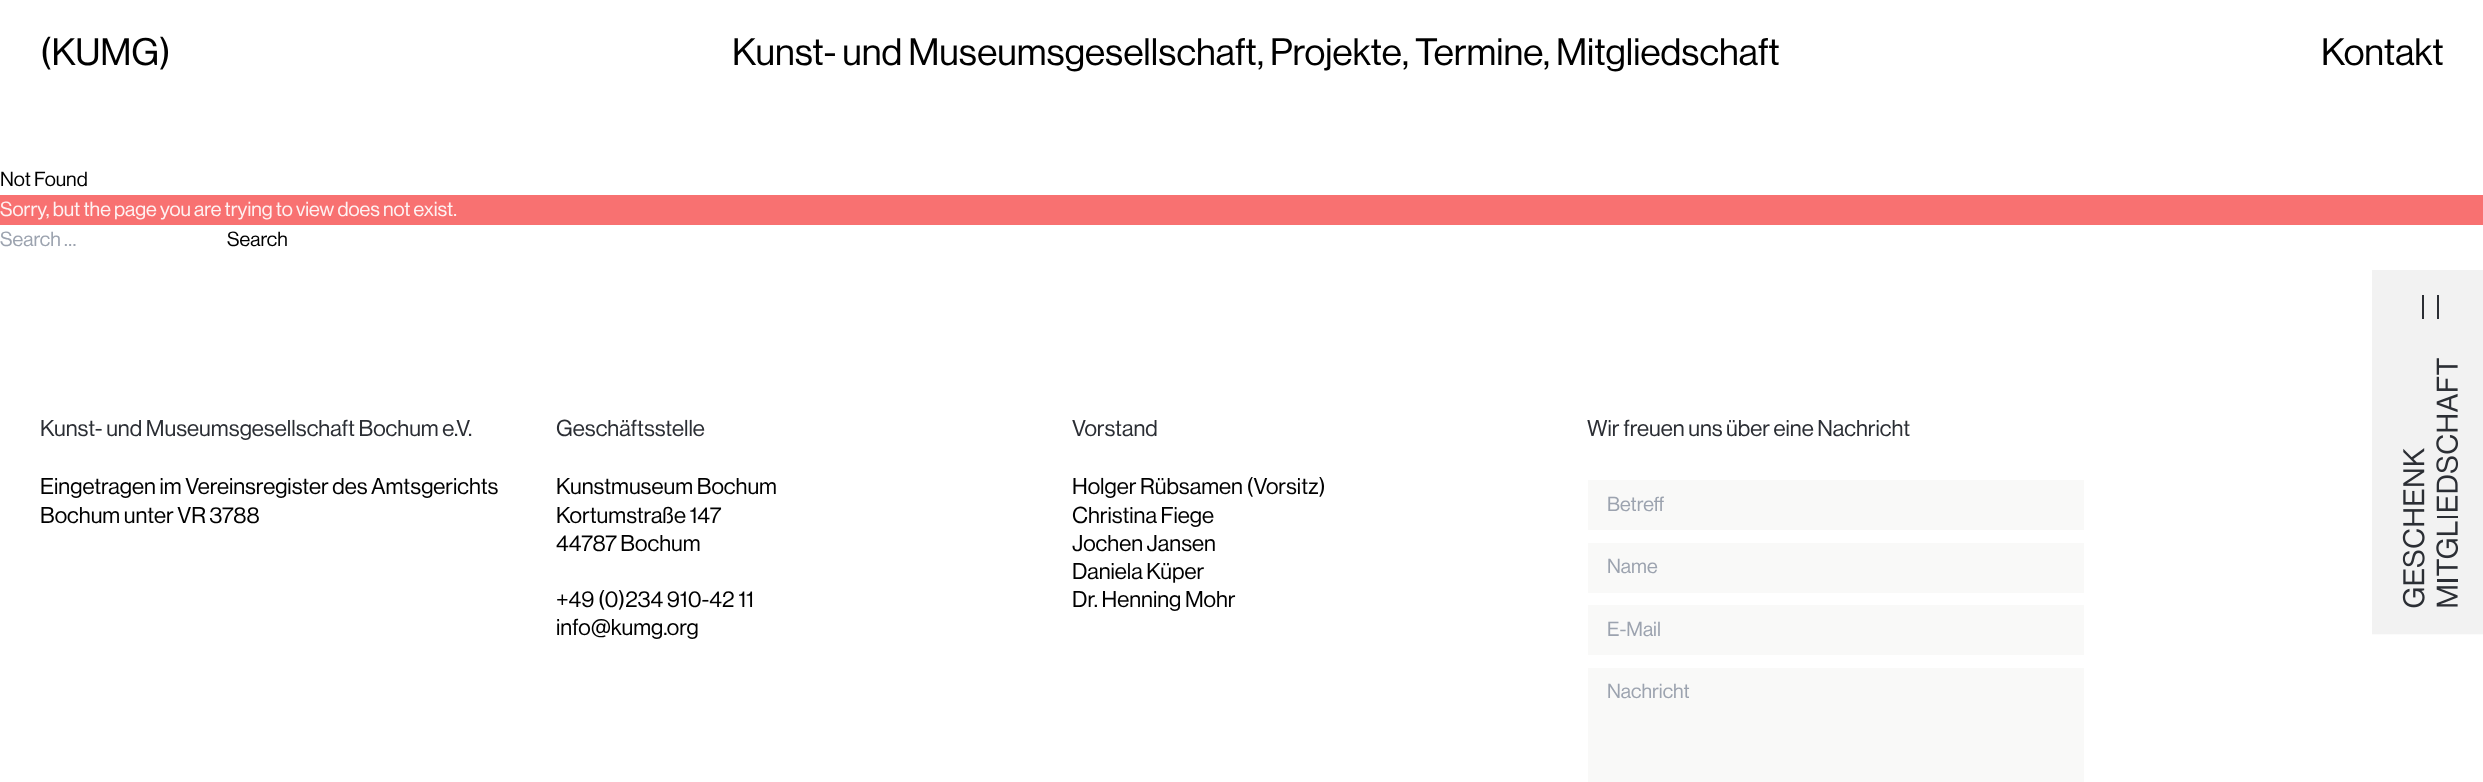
(async () => {
    const canvas = document.querySelector("canvas");
    canvas.width = 2483;
    canvas.height = 782;
    const context = canvas.getContext("2d");
    context.miterLimit = 4;
    context.fontKerning = "normal";
    function write(s, x, y, font, color) {
        context.font = font;
        context.fillStyle = color;
        context.fillText(s, x, y);
    }
    function block(x, y, w, h, color) {
        context.fillStyle = color;
        context.fillRect(x, y, w, h);
    }
    async function photo(src, x, y, w, h) {
        const img = new Image();
        img.src = src;
        await img.decode();
        context.drawImage(img, x, y, w, h);
    }

    block(0, 0, 2483, 782, "rgb(255, 255, 255)");
    write("(KUMG)", 40, 65, "37.5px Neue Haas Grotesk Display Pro", "rgb(0, 0, 0)");
    write("Kunst- und Museumsgesellschaft", 732, 65, "37.5px Neue Haas Grotesk Display Pro", "rgb(0, 0, 0)");
    write(", Projekte", 1257, 65, "37.5px Neue Haas Grotesk Display Pro", "rgb(0, 0, 0)");
    write(", Termine", 1402, 65, "37.5px Neue Haas Grotesk Display Pro", "rgb(0, 0, 0)");
    write(", Mitgliedschaft", 1543, 65, "37.5px Neue Haas Grotesk Display Pro", "rgb(0, 0, 0)");
    write("Kontakt", 2321, 65, "37.5px Neue Haas Grotesk Display Pro", "rgb(0, 0, 0)");
    write("Not Found", 0, 186, "20px Neue Haas Grotesk Display Pro", "rgb(0, 0, 0)");
    block(0, 195, 2483, 30, "rgb(248, 113, 113)");
    write("Sorry, but the page you are trying to view does not exist.", 0, 216, "20px Neue Haas Grotesk Display Pro", "rgb(254, 242, 242)");
    write("Search …", 0, 246, "20px Neue Haas Grotesk Display Pro", "rgb(156, 163, 175)");
    write("Search", 227, 246, "20px Neue Haas Grotesk Display Pro", "rgb(0, 0, 0)");
    write("Kunst- und Museumsgesellschaft Bochum e.V.", 40, 436, "22.5px Neue Haas Grotesk Display Pro", "rgb(43, 46, 52)");
    write("Eingetragen im Vereinsregister des Amtsgerichts", 40, 494, "22.5px Neue Haas Grotesk Display Pro", "rgb(0, 0, 0)");
    write("Bochum unter VR 3788", 40, 523, "22.5px Neue Haas Grotesk Display Pro", "rgb(0, 0, 0)");
    write("Geschäftsstelle", 556, 436, "22.5px Neue Haas Grotesk Display Pro", "rgb(43, 46, 52)");
    write("Kunstmuseum Bochum", 556, 494, "22.5px Neue Haas Grotesk Display Pro", "rgb(0, 0, 0)");
    write("Kortumstraße 147", 556, 523, "22.5px Neue Haas Grotesk Display Pro", "rgb(0, 0, 0)");
    write("44787 Bochum", 556, 551, "22.5px Neue Haas Grotesk Display Pro", "rgb(0, 0, 0)");
    write("+49 (0)234 910-42 11", 556, 607, "22.5px Neue Haas Grotesk Display Pro", "rgb(0, 0, 0)");
    write("info@kumg.org", 556, 635, "22.5px Neue Haas Grotesk Display Pro", "rgb(0, 0, 0)");
    write("Vorstand", 1072, 436, "22.5px Neue Haas Grotesk Display Pro", "rgb(43, 46, 52)");
    write("Holger Rübsamen (Vorsitz)", 1072, 494, "22.5px Neue Haas Grotesk Display Pro", "rgb(0, 0, 0)");
    write("Christina Fiege", 1072, 523, "22.5px Neue Haas Grotesk Display Pro", "rgb(0, 0, 0)");
    write("Jochen Jansen", 1072, 551, "22.5px Neue Haas Grotesk Display Pro", "rgb(0, 0, 0)");
    write("Daniela Küper", 1072, 579, "22.5px Neue Haas Grotesk Display Pro", "rgb(0, 0, 0)");
    write("Dr. Henning Mohr", 1072, 607, "22.5px Neue Haas Grotesk Display Pro", "rgb(0, 0, 0)");
    write("Wir freuen uns über eine Nachricht", 1587, 436, "22.5px Neue Haas Grotesk Display Pro", "rgb(43, 46, 52)");
    block(1588, 480, 496, 50, "rgb(249, 249, 248)");
    write("Betreff", 1607, 511, "20px Neue Haas Grotesk Display Pro", "rgb(156, 163, 175)");
    block(1588, 543, 496, 50, "rgb(249, 249, 248)");
    write("Name", 1607, 573, "20px Neue Haas Grotesk Display Pro", "rgb(156, 163, 175)");
    block(1588, 605, 496, 50, "rgb(249, 249, 248)");
    write("E-Mail", 1607, 636, "20px Neue Haas Grotesk Display Pro", "rgb(156, 163, 175)");
    block(1588, 668, 496, 114, "rgb(249, 249, 248)");
    write("Nachricht", 1607, 698, "20px Neue Haas Grotesk Display Pro", "rgb(156, 163, 175)");
    await photo("media/1.png", 2372, 270, 111, 365);
})();
